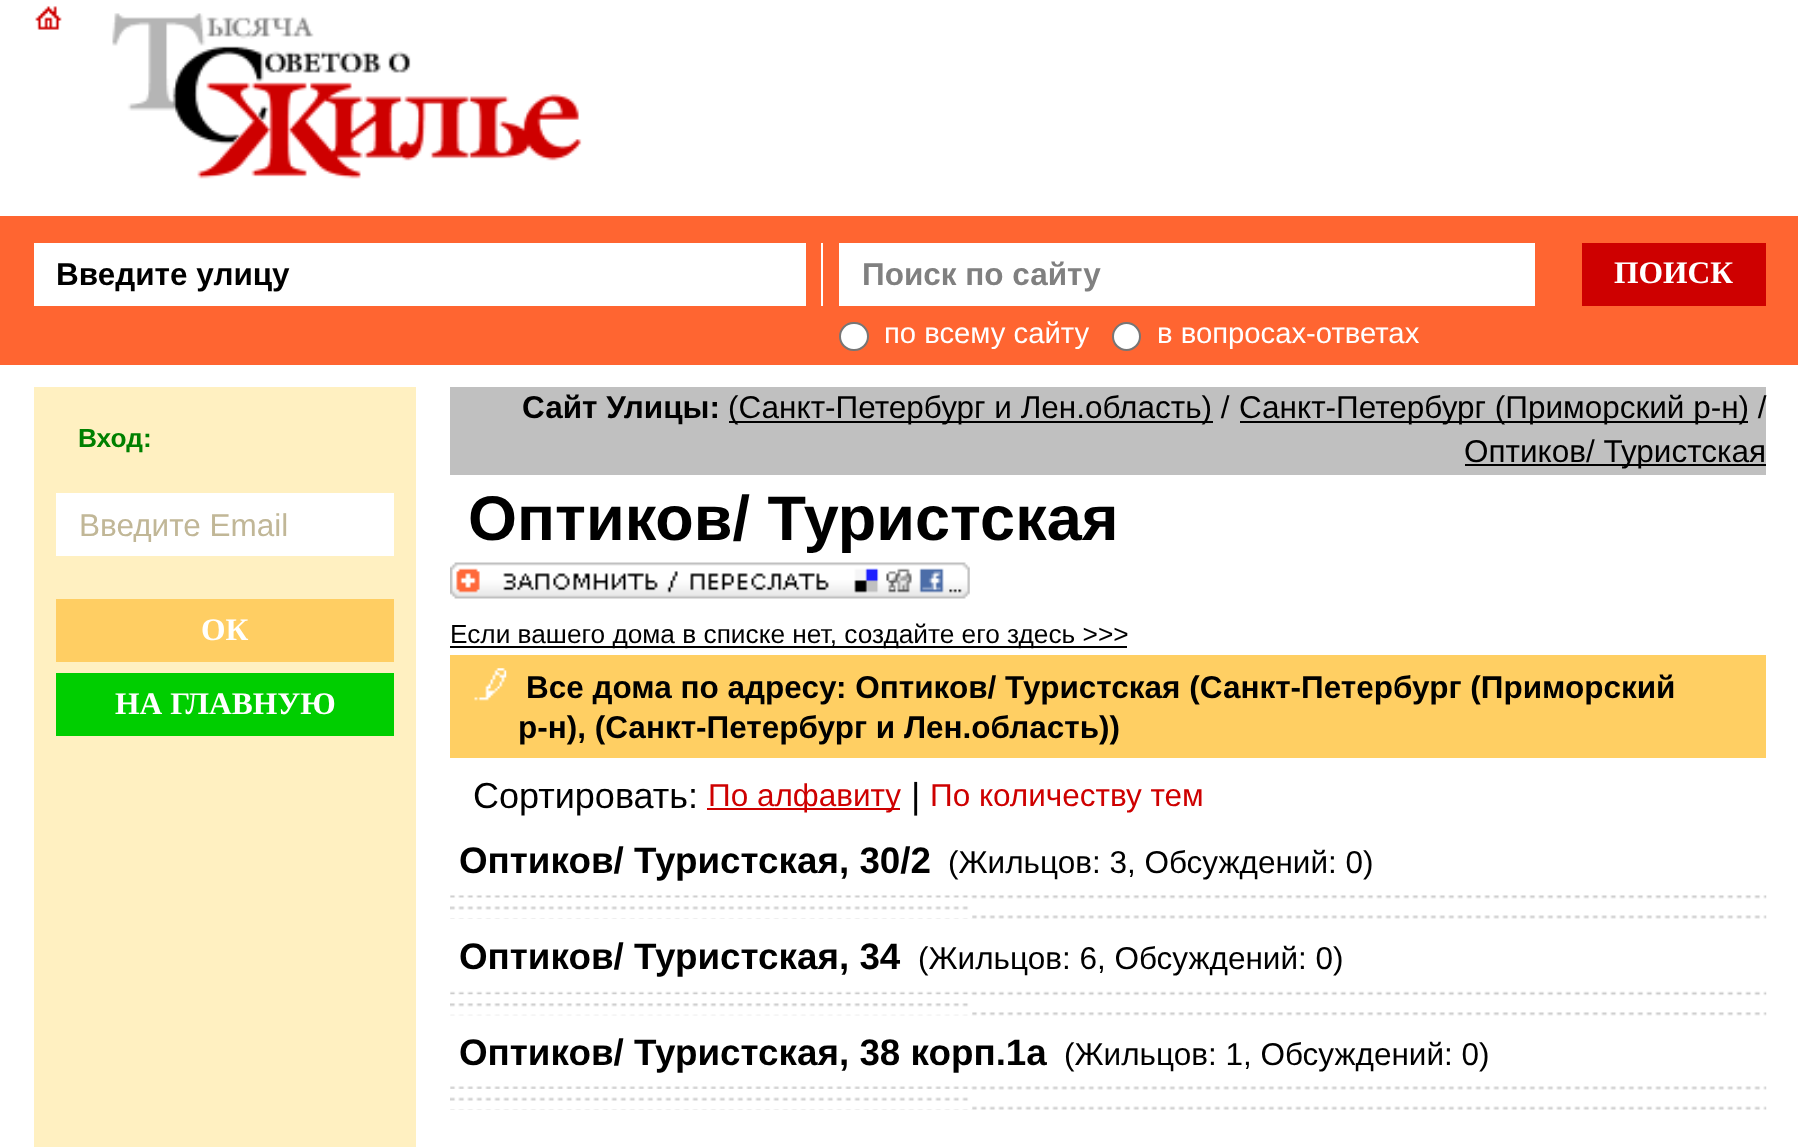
(async () => {
    const canvas = document.querySelector("canvas");
    canvas.width = 1798;
    canvas.height = 1147;
    const context = canvas.getContext("2d");
    context.miterLimit = 4;
    context.fontKerning = "normal";
    function write(s, x, y, font, color) {
        context.font = font;
        context.fillStyle = color;
        context.fillText(s, x, y);
    }
    function block(x, y, w, h, color) {
        context.fillStyle = color;
        context.fillRect(x, y, w, h);
    }
    async function photo(src, x, y, w, h) {
        const img = new Image();
        img.src = src;
        await img.decode();
        context.drawImage(img, x, y, w, h);
    }

    block(0, 0, 1798, 1147, "rgb(255, 255, 255)");
    await photo("media/1.png", 35, 6, 547, 173);
    block(0, 216, 1798, 149, "rgb(255, 101, 49)");
    block(34, 243, 772, 63, "rgb(255, 255, 255)");
    write("Введите улицу", 56, 285, "bold 31.5px Liberation Sans", "rgb(0, 0, 0)");
    block(821, 243, 2, 63, "rgb(255, 255, 255)");
    block(839, 243, 696, 63, "rgb(255, 255, 255)");
    write("Поиск по сайту", 862, 285, "bold 31.5px Liberation Sans", "rgb(128, 128, 128)");
    block(1582, 243, 184, 63, "rgb(206, 0, 0)");
    write("ПОИСК", 1614, 283, "bold 31.5px Liberation Serif", "rgb(255, 255, 255)");
    context.beginPath();
    context.roundRect(840, 323, 28, 27, 13.5);
    context.fill();
    context.strokeStyle = "rgb(118, 118, 118)";
    context.lineWidth = 2;
    context.stroke();
    write("по всему сайту", 884, 343, "29.25px Liberation Sans", "rgb(255, 255, 255)");
    context.beginPath();
    context.arc(1126.5, 336.5, 13.5, 0, Math.PI * 2);
    context.fill();
    context.stroke();
    write("в вопросах-ответах", 1157, 343, "29.25px Liberation Sans", "rgb(255, 255, 255)");
    block(34, 387, 382, 760, "rgb(255, 240, 193)");
    write("Вход:", 78, 447, "bold 26.25px Liberation Sans", "rgb(0, 128, 0)");
    block(56, 493, 338, 63, "rgb(255, 255, 255)");
    context.save();
    context.beginPath();
    context.rect(79, 506, 292, 36);
    context.clip();
    write("Введите Email", 79, 536, "31.5px Liberation Sans", "rgb(193, 183, 151)");
    context.restore();
    block(56, 599, 338, 63, "rgb(255, 206, 99)");
    write("ОК", 201, 640, "bold 31.5px Liberation Serif", "rgb(255, 255, 255)");
    block(56, 673, 338, 63, "rgb(0, 206, 0)");
    write("НА ГЛАВНУЮ", 115, 714, "bold 31.5px Liberation Serif", "rgb(255, 255, 255)");
    block(450, 387, 1316, 88, "rgb(192, 192, 192)");
    write("Сайт Улицы:", 522, 418, "bold 31.5px Liberation Sans", "rgb(0, 0, 0)");
    block(729, 421, 484, 2, "rgb(0, 0, 0)");
    write("(Санкт-Петербург и Лен.область) /", 728, 418, "31.5px Liberation Sans", "rgb(0, 0, 0)");
    block(1240, 421, 508, 2, "rgb(0, 0, 0)");
    write("Санкт-Петербург (Приморский р-н) /", 1239, 418, "31.5px Liberation Sans", "rgb(0, 0, 0)");
    block(1465, 464, 301, 2, "rgb(0, 0, 0)");
    write("Оптиков/ Туристская", 1464, 462, "31.5px Liberation Sans", "rgb(0, 0, 0)");
    write("Оптиков/ Туристская", 468, 540, "bold 63px Liberation Sans", "rgb(0, 0, 0)");
    await photo("media/2.png", 450, 562, 520, 37);
    block(450, 646, 677, 2, "rgb(0, 0, 0)");
    write("Если вашего дома в списке нет, создайте его здесь >>>", 450, 643, "26.25px Liberation Sans", "rgb(0, 0, 0)");
    block(450, 655, 1316, 103, "rgb(255, 207, 99)");
    await photo("media/3.png", 474, 668, 33, 33);
    write("Все дома по адресу: Оптиков/ Туристская (Санкт-Петербург (Приморский", 526, 698, "bold 31.5px Liberation Sans", "rgb(0, 0, 0)");
    write("р-н), (Санкт-Петербург и Лен.область))", 518, 738, "bold 31.5px Liberation Sans", "rgb(0, 0, 0)");
    write("Сортировать:", 473, 808, "36px Liberation Sans", "rgb(0, 0, 0)");
    block(707, 808, 193, 2, "rgb(206, 0, 0)");
    write("По алфавиту", 708, 806, "31.5px Liberation Sans", "rgb(206, 0, 0)");
    write("|", 911, 808, "36px Liberation Sans", "rgb(0, 0, 0)");
    write("По количеству тем", 930, 806, "31.5px Liberation Sans", "rgb(206, 0, 0)");
    write("Оптиков/ Туристская, 30/2", 459, 873, "bold 36.8px Liberation Sans", "rgb(0, 0, 0)");
    write("(Жильцов: 3, Обсуждений: 0)", 948, 873, "31.5px Liberation Sans", "rgb(0, 0, 0)");
    await photo("media/4.png", 450, 895, 1317, 24);
    await photo("media/5.png", 450, 897, 522, 21);
    write("Оптиков/ Туристская, 34", 459, 969, "bold 36.8px Liberation Sans", "rgb(0, 0, 0)");
    write("(Жильцов: 6, Обсуждений: 0)", 918, 969, "31.5px Liberation Sans", "rgb(0, 0, 0)");
    await photo("media/6.png", 450, 991, 1317, 25);
    await photo("media/7.png", 450, 994, 522, 21);
    write("Оптиков/ Туристская, 38 корп.1а", 459, 1065, "bold 36.8px Liberation Sans", "rgb(0, 0, 0)");
    write("(Жильцов: 1, Обсуждений: 0)", 1064, 1065, "31.5px Liberation Sans", "rgb(0, 0, 0)");
    await photo("media/8.png", 450, 1086, 1317, 24);
    await photo("media/9.png", 450, 1089, 522, 21);
})();
